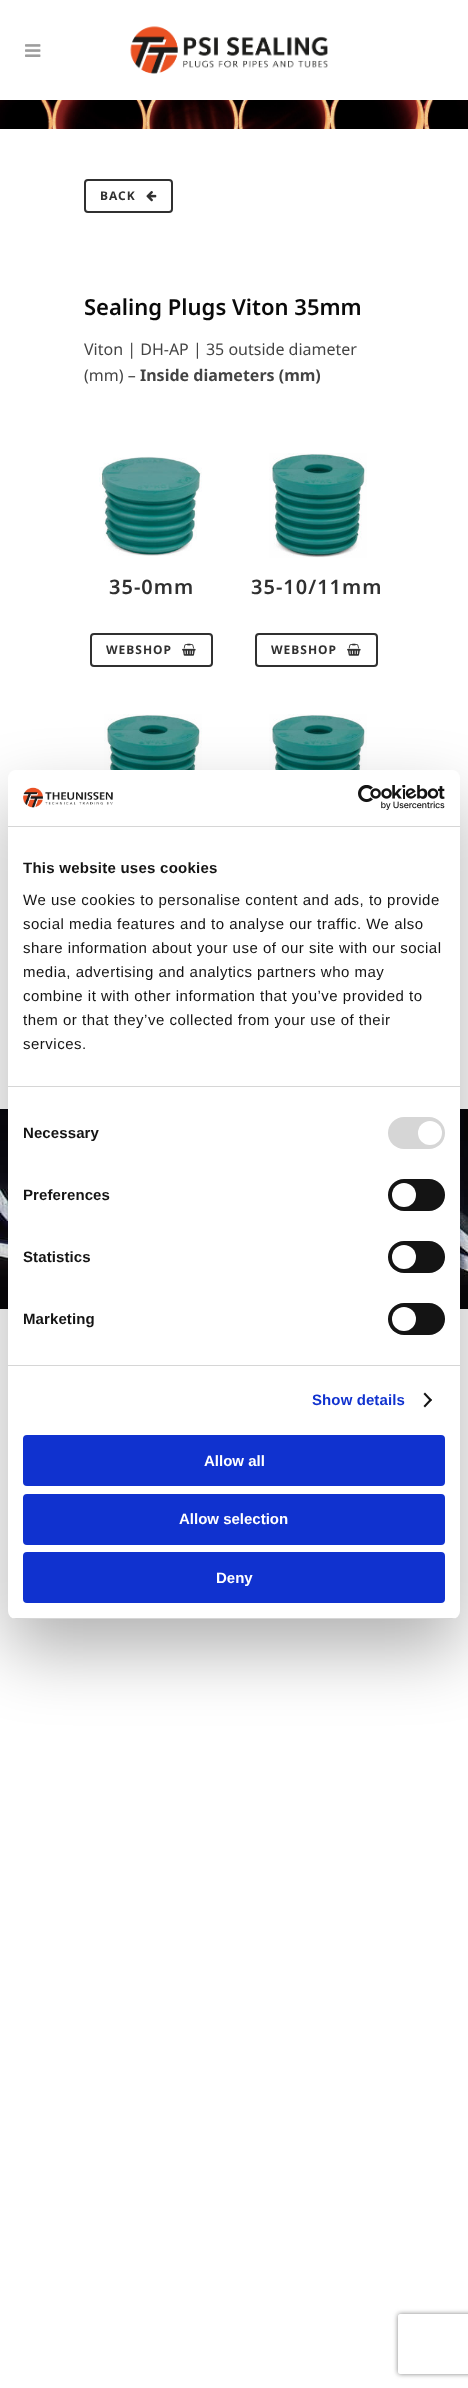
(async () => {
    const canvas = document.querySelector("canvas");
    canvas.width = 468;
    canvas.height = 2388;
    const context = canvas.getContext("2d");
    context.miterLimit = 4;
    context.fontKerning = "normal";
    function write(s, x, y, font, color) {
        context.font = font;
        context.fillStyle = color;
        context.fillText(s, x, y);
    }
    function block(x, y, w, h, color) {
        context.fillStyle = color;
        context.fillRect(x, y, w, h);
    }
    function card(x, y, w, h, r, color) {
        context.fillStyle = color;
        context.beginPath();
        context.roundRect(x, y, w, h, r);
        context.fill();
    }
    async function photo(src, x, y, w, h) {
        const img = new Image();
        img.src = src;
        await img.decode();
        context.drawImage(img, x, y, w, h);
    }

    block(0, 0, 468, 2388, "rgb(255, 255, 255)");
    await photo("media/1.png", 25, 44, 16, 13);
    await photo("media/2.png", 130, 26, 198, 48);
    await photo("media/3.png", 0, 100, 468, 29);
    context.beginPath();
    context.roundRect(85, 180, 87, 32, 3);
    context.strokeStyle = "rgb(48, 48, 48)";
    context.lineWidth = 2;
    context.stroke();
    context.letterSpacing = "1px";
    write("BACK", 100, 200, "bold 12px Noto Sans", "rgb(48, 48, 48)");
    await photo("media/4.png", 146, 191, 11, 11);
    context.letterSpacing = "0px";
    write("Sealing Plugs Viton 35mm", 84, 315, "600 22px Noto Sans", "rgb(10, 10, 10)");
    write("Viton | DH-AP | 35 outside diameter", 84, 355, "16px Noto Sans", "rgb(68, 68, 68)");
    write("(mm) –", 84, 381, "16px Noto Sans", "rgb(68, 68, 68)");
    write("Inside diameters (mm)", 140, 381, "bold 16px Noto Sans", "rgb(68, 68, 68)");
    await photo("media/5.png", 99, 456, 103, 100);
    context.letterSpacing = "1px";
    write("35-0mm", 109, 594, "600 20px Noto Sans", "rgb(48, 48, 48)");
    context.beginPath();
    context.roundRect(91, 634, 121, 32, 3);
    context.stroke();
    write("WEBSHOP", 106, 654, "bold 12px Noto Sans", "rgb(48, 48, 48)");
    await photo("media/6.png", 182, 643, 14, 13);
    await photo("media/7.png", 269, 453, 98, 105);
    write("35-10/11mm", 251, 594, "600 20px Noto Sans", "rgb(48, 48, 48)");
    context.beginPath();
    context.roundRect(256, 634, 121, 32, 3);
    context.stroke();
    write("WEBSHOP", 271, 654, "bold 12px Noto Sans", "rgb(48, 48, 48)");
    await photo("media/6.png", 347, 643, 14, 13);
    await photo("media/8.png", 104, 714, 98, 56);
    await photo("media/9.png", 269, 714, 98, 56);
    await photo("media/10.png", 0, 1109, 468, 200);
    context.fillStyle = "rgba(0, 0, 0, 0.3)";
    context.filter = "blur(34px)";
    context.beginPath();
    context.roundRect(8, 802, 452, 849, 8);
    context.fill();
    context.filter = "none";
    card(8, 770, 452, 849, 8, "rgb(255, 255, 255)");
    block(8, 826, 452, 1, "rgb(214, 214, 214)");
    await photo("media/11.png", 23, 787, 90, 21);
    await photo("media/12.png", 358, 785, 87, 25);
    block(8, 1086, 452, 1, "rgb(214, 214, 214)");
    context.letterSpacing = "0.25px";
    write("This website uses cookies", 23, 873, "bold 15px Liberation Sans", "rgb(20, 20, 20)");
    context.letterSpacing = "0.5px";
    write("We use cookies to personalise content and ads, to provide", 23, 905, "15px Liberation Sans", "rgb(20, 20, 20)");
    write("social media features and to analyse our traffic. We also", 23, 929, "15px Liberation Sans", "rgb(20, 20, 20)");
    write("share information about your use of our site with our social", 23, 953, "15px Liberation Sans", "rgb(20, 20, 20)");
    write("media, advertising and analytics partners who may", 23, 977, "15px Liberation Sans", "rgb(20, 20, 20)");
    write("combine it with other information that you’ve provided to", 23, 1001, "15px Liberation Sans", "rgb(20, 20, 20)");
    write("them or that they’ve collected from your use of their", 23, 1025, "15px Liberation Sans", "rgb(20, 20, 20)");
    write("services.", 23, 1049, "15px Liberation Sans", "rgb(20, 20, 20)");
    block(8, 1365, 452, 1, "rgb(214, 214, 214)");
    context.letterSpacing = "0.1px";
    write("Necessary", 23, 1138, "bold 15px Liberation Sans", "rgb(20, 20, 20)");
    card(388, 1117, 57, 32, 16, "rgb(214, 214, 214)");
    context.fillStyle = "rgb(255, 255, 255)";
    context.beginPath();
    context.arc(430, 1133, 12, 0, Math.PI * 2);
    context.fill();
    write("Preferences", 23, 1200, "bold 15px Liberation Sans", "rgb(20, 20, 20)");
    card(388, 1179, 57, 32, 16, "rgb(20, 20, 20)");
    context.fillStyle = "rgb(255, 255, 255)";
    context.beginPath();
    context.arc(404, 1195, 12, 0, Math.PI * 2);
    context.fill();
    write("Statistics", 23, 1262, "bold 15px Liberation Sans", "rgb(20, 20, 20)");
    card(388, 1241, 57, 32, 16, "rgb(20, 20, 20)");
    context.fillStyle = "rgb(255, 255, 255)";
    context.beginPath();
    context.arc(404, 1257, 12, 0, Math.PI * 2);
    context.fill();
    write("Marketing", 23, 1324, "bold 15px Liberation Sans", "rgb(20, 20, 20)");
    card(388, 1303, 57, 32, 16, "rgb(20, 20, 20)");
    context.fillStyle = "rgb(255, 255, 255)";
    context.beginPath();
    context.arc(404, 1319, 12, 0, Math.PI * 2);
    context.fill();
    write("Show details", 312, 1405, "bold 15px Liberation Sans", "rgb(16, 50, 207)");
    context.fillStyle = "rgb(20, 20, 20)";
    context.beginPath();
    context.moveTo(425, 1392.5);
    context.lineTo(432, 1400);
    context.lineTo(430.5, 1401.5);
    context.lineTo(423.5, 1394);
    context.closePath();
    context.fill();
    context.beginPath();
    context.moveTo(430.5, 1398.5);
    context.lineTo(432, 1400);
    context.lineTo(425, 1407.5);
    context.lineTo(423.5, 1406);
    context.closePath();
    context.fill();
    context.save();
    context.beginPath();
    context.roundRect(8, 770, 452, 849, 8);
    context.clip();
    block(8, 1618, 452, 1, "rgb(214, 214, 214)");
    context.restore();
    context.fillStyle = "rgb(16, 50, 207)";
    context.beginPath();
    context.roundRect(24, 1436, 420, 49, 3);
    context.fill();
    context.strokeStyle = "rgb(16, 50, 207)";
    context.stroke();
    context.letterSpacing = "0px";
    write("Allow all", 204, 1466, "bold 15px Liberation Sans", "rgb(255, 255, 255)");
    context.fillStyle = "rgb(16, 50, 207)";
    context.beginPath();
    context.roundRect(24, 1495, 420, 49, 3);
    context.fill();
    context.stroke();
    write("Allow selection", 179, 1524, "bold 15px Liberation Sans", "rgb(255, 255, 255)");
    context.fillStyle = "rgb(16, 50, 207)";
    context.beginPath();
    context.roundRect(24, 1553, 420, 49, 3);
    context.fill();
    context.stroke();
    write("Deny", 216, 1583, "bold 15px Liberation Sans", "rgb(255, 255, 255)");
    context.save();
    context.beginPath();
    context.moveTo(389, 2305);
    context.lineTo(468, 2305);
    context.lineTo(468, 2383);
    context.lineTo(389, 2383);
    context.closePath();
    context.moveTo(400, 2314);
    context.lineTo(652, 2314);
    context.bezierCurveTo(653, 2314, 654, 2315, 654, 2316);
    context.lineTo(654, 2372);
    context.bezierCurveTo(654, 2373, 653, 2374, 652, 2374);
    context.lineTo(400, 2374);
    context.bezierCurveTo(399, 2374, 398, 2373, 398, 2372);
    context.lineTo(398, 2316);
    context.bezierCurveTo(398, 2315, 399, 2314, 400, 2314);
    context.closePath();
    context.clip("evenodd");
    context.fillStyle = "rgb(128, 128, 128)";
    context.filter = "blur(2.5px)";
    context.beginPath();
    context.roundRect(398, 2314, 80, 60, 2);
    context.fill();
    context.filter = "none";
    context.restore();
})();
